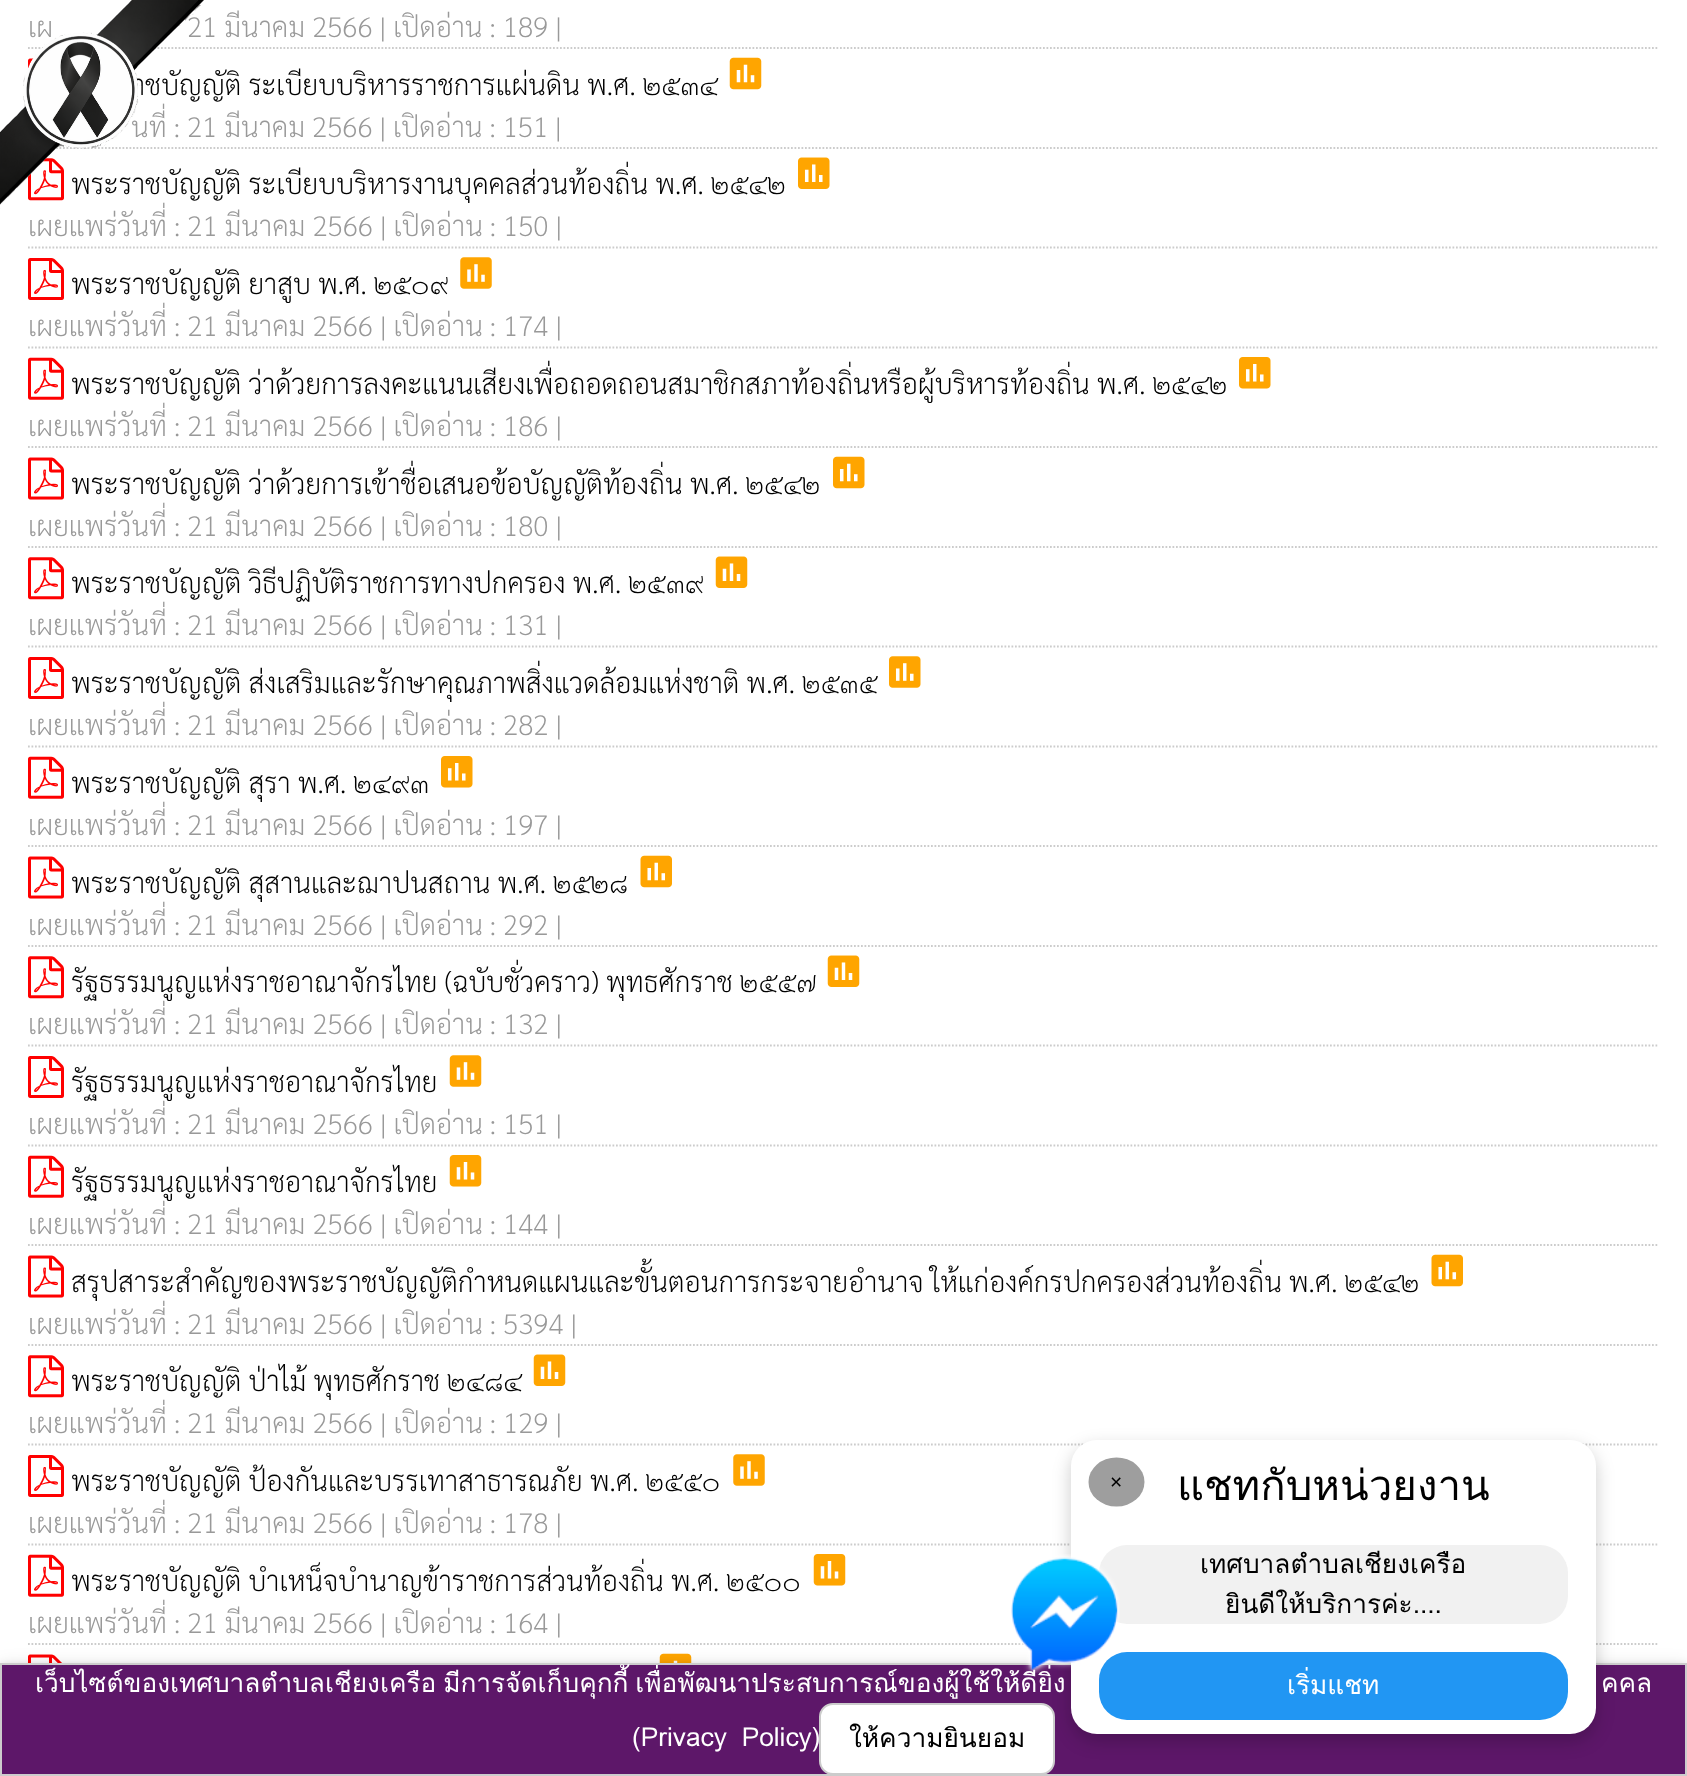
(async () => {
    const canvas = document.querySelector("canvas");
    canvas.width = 1687;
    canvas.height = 1776;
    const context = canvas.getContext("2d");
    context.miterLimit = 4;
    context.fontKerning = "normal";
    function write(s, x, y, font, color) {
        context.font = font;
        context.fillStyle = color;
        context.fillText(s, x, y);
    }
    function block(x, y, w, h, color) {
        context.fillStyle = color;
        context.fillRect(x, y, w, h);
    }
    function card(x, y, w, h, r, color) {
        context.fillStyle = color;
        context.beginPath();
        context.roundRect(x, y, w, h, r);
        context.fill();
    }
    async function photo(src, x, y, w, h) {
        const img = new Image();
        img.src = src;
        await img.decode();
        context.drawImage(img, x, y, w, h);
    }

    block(0, 0, 1687, 1776, "rgb(255, 255, 255)");
    context.beginPath();
    context.moveTo(28, 48);
    context.lineTo(1659, 48);
    context.strokeStyle = "rgb(204, 204, 204)";
    context.lineWidth = 1.8;
    context.setLineDash([1.75, 1.75]);
    context.stroke();
    write("เผ", 28, 37, "200 28px Sarabun", "rgb(153, 153, 153)");
    write("21 มีนาคม 2566 | เปิดอ่าน : 189 |", 187, 37, "200 28px Sarabun", "rgb(153, 153, 153)");
    await photo("media/2.png", 28, 58, 6, 10);
    write("าชบัญญัติ ระเบียบบริหารราชการแผ่นดิน พ.ศ. ๒๕๓๔", 132, 95, "200 28px Sarabun", "rgb(0, 0, 0)");
    context.beginPath();
    context.moveTo(28, 148);
    context.lineTo(1659, 148);
    context.stroke();
    write("นที่ : 21 มีนาคม 2566 | เปิดอ่าน : 151 |", 131, 137, "200 28px Sarabun", "rgb(153, 153, 153)");
    await photo("media/4.png", 28, 158, 36, 43);
    write("พระราชบัญญัติ ระเบียบบริหารงานบุคคลส่วนท้องถิ่น พ.ศ. ๒๕๔๒", 71, 194, "200 28px Sarabun", "rgb(0, 0, 0)");
    write("เผยแพร่วันที่ : 21 มีนาคม 2566 | เปิดอ่าน : 150 |", 28, 236, "200 28px Sarabun", "rgb(153, 153, 153)");
    await photo("media/1.png", 0, 0, 204, 209);
    await photo("media/3.png", 729, 57, 33, 33);
    await photo("media/5.png", 798, 157, 32, 32);
    context.beginPath();
    context.moveTo(28, 247.5);
    context.lineTo(1659, 247.5);
    context.stroke();
    await photo("media/6.png", 28, 258, 36, 42);
    write("พระราชบัญญัติ ยาสูบ พ.ศ. ๒๕๐๙", 71, 294, "200 28px Sarabun", "rgb(0, 0, 0)");
    await photo("media/7.png", 460, 257, 32, 32);
    context.beginPath();
    context.moveTo(28, 347.5);
    context.lineTo(1659, 347.5);
    context.stroke();
    write("เผยแพร่วันที่ : 21 มีนาคม 2566 | เปิดอ่าน : 174 |", 28, 336, "200 28px Sarabun", "rgb(153, 153, 153)");
    await photo("media/8.png", 28, 357, 36, 43);
    write("พระราชบัญญัติ ว่าด้วยการลงคะแนนเสียงเพื่อถอดถอนสมาชิกสภาท้องถิ่นหรือผู้บริหารท้องถิ่น พ.ศ. ๒๕๔๒", 71, 394, "200 28px Sarabun", "rgb(0, 0, 0)");
    await photo("media/9.png", 1239, 357, 32, 32);
    context.beginPath();
    context.moveTo(28, 447);
    context.lineTo(1659, 447);
    context.stroke();
    write("เผยแพร่วันที่ : 21 มีนาคม 2566 | เปิดอ่าน : 186 |", 28, 436, "200 28px Sarabun", "rgb(153, 153, 153)");
    await photo("media/10.png", 28, 457, 36, 43);
    write("พระราชบัญญัติ ว่าด้วยการเข้าชื่อเสนอข้อบัญญัติท้องถิ่น พ.ศ. ๒๕๔๒", 71, 494, "200 28px Sarabun", "rgb(0, 0, 0)");
    await photo("media/11.png", 833, 456, 32, 33);
    context.beginPath();
    context.moveTo(28, 547);
    context.lineTo(1659, 547);
    context.stroke();
    write("เผยแพร่วันที่ : 21 มีนาคม 2566 | เปิดอ่าน : 180 |", 28, 536, "200 28px Sarabun", "rgb(153, 153, 153)");
    await photo("media/4.png", 28, 557, 36, 43);
    write("พระราชบัญญัติ วิธีปฏิบัติราชการทางปกครอง พ.ศ. ๒๕๓๙", 71, 593, "200 28px Sarabun", "rgb(0, 0, 0)");
    await photo("media/12.png", 715, 556, 33, 32);
    context.beginPath();
    context.moveTo(28, 646.5);
    context.lineTo(1659, 646.5);
    context.stroke();
    write("เผยแพร่วันที่ : 21 มีนาคม 2566 | เปิดอ่าน : 131 |", 28, 635, "200 28px Sarabun", "rgb(153, 153, 153)");
    await photo("media/6.png", 28, 657, 36, 42);
    write("พระราชบัญญัติ ส่งเสริมและรักษาคุณภาพสิ่งแวดล้อมแห่งชาติ พ.ศ. ๒๕๓๕", 71, 693, "200 28px Sarabun", "rgb(0, 0, 0)");
    await photo("media/13.png", 889, 656, 32, 32);
    context.beginPath();
    context.moveTo(28, 746.5);
    context.lineTo(1659, 746.5);
    context.stroke();
    write("เผยแพร่วันที่ : 21 มีนาคม 2566 | เปิดอ่าน : 282 |", 28, 735, "200 28px Sarabun", "rgb(153, 153, 153)");
    await photo("media/8.png", 28, 756, 36, 43);
    write("พระราชบัญญัติ สุรา พ.ศ. ๒๔๙๓", 71, 793, "200 28px Sarabun", "rgb(0, 0, 0)");
    await photo("media/9.png", 441, 756, 32, 32);
    context.beginPath();
    context.moveTo(28, 846);
    context.lineTo(1659, 846);
    context.stroke();
    write("เผยแพร่วันที่ : 21 มีนาคม 2566 | เปิดอ่าน : 197 |", 28, 835, "200 28px Sarabun", "rgb(153, 153, 153)");
    await photo("media/10.png", 28, 856, 36, 43);
    write("พระราชบัญญัติ สุสานและฌาปนสถาน พ.ศ. ๒๕๒๘", 71, 893, "200 28px Sarabun", "rgb(0, 0, 0)");
    await photo("media/14.png", 640, 855, 32, 33);
    context.beginPath();
    context.moveTo(28, 946);
    context.lineTo(1659, 946);
    context.stroke();
    write("เผยแพร่วันที่ : 21 มีนาคม 2566 | เปิดอ่าน : 292 |", 28, 935, "200 28px Sarabun", "rgb(153, 153, 153)");
    await photo("media/4.png", 28, 956, 36, 43);
    write("รัฐธรรมนูญแห่งราชอาณาจักรไทย (ฉบับชั่วคราว) พุทธศักราช ๒๕๕๗", 71, 992, "200 28px Sarabun", "rgb(0, 0, 0)");
    await photo("media/12.png", 827, 955, 33, 32);
    context.beginPath();
    context.moveTo(28, 1045.5);
    context.lineTo(1659, 1045.5);
    context.stroke();
    write("เผยแพร่วันที่ : 21 มีนาคม 2566 | เปิดอ่าน : 132 |", 28, 1034, "200 28px Sarabun", "rgb(153, 153, 153)");
    await photo("media/6.png", 28, 1056, 36, 42);
    write("รัฐธรรมนูญแห่งราชอาณาจักรไทย", 71, 1092, "200 28px Sarabun", "rgb(0, 0, 0)");
    await photo("media/15.png", 449, 1055, 33, 32);
    context.beginPath();
    context.moveTo(28, 1145.5);
    context.lineTo(1659, 1145.5);
    context.stroke();
    write("เผยแพร่วันที่ : 21 มีนาคม 2566 | เปิดอ่าน : 151 |", 28, 1134, "200 28px Sarabun", "rgb(153, 153, 153)");
    await photo("media/8.png", 28, 1155, 36, 43);
    write("รัฐธรรมนูญแห่งราชอาณาจักรไทย", 71, 1192, "200 28px Sarabun", "rgb(0, 0, 0)");
    await photo("media/16.png", 449, 1155, 33, 32);
    context.beginPath();
    context.moveTo(28, 1245);
    context.lineTo(1659, 1245);
    context.stroke();
    write("เผยแพร่วันที่ : 21 มีนาคม 2566 | เปิดอ่าน : 144 |", 28, 1234, "200 28px Sarabun", "rgb(153, 153, 153)");
    await photo("media/10.png", 28, 1255, 36, 43);
    write("สรุปสาระสำคัญของพระราชบัญญัติกำหนดแผนและขั้นตอนการกระจายอำนาจ ให้แก่องค์กรปกครองส่วนท้องถิ่น พ.ศ. ๒๕๔๒", 71, 1292, "200 28px Sarabun", "rgb(0, 0, 0)");
    await photo("media/14.png", 1431, 1254, 32, 33);
    context.beginPath();
    context.moveTo(28, 1345);
    context.lineTo(1659, 1345);
    context.stroke();
    write("เผยแพร่วันที่ : 21 มีนาคม 2566 | เปิดอ่าน : 5394 |", 28, 1334, "200 28px Sarabun", "rgb(153, 153, 153)");
    await photo("media/4.png", 28, 1355, 36, 43);
    write("พระราชบัญญัติ ป่าไม้ พุทธศักราช ๒๔๘๔", 71, 1391, "200 28px Sarabun", "rgb(0, 0, 0)");
    await photo("media/12.png", 533, 1354, 33, 32);
    context.beginPath();
    context.moveTo(28, 1444.5);
    context.lineTo(1659, 1444.5);
    context.stroke();
    write("เผยแพร่วันที่ : 21 มีนาคม 2566 | เปิดอ่าน : 129 |", 28, 1433, "200 28px Sarabun", "rgb(153, 153, 153)");
    await photo("media/6.png", 28, 1455, 36, 42);
    write("พระราชบัญญัติ ป้องกันและบรรเทาสาธารณภัย พ.ศ. ๒๕๕๐", 71, 1491, "200 28px Sarabun", "rgb(0, 0, 0)");
    await photo("media/7.png", 733, 1454, 32, 32);
    context.beginPath();
    context.moveTo(28, 1544.5);
    context.lineTo(1659, 1544.5);
    context.stroke();
    write("เผยแพร่วันที่ : 21 มีนาคม 2566 | เปิดอ่าน : 178 |", 28, 1533, "200 28px Sarabun", "rgb(153, 153, 153)");
    await photo("media/8.png", 28, 1554, 36, 43);
    write("พระราชบัญญัติ บําเหน็จบํานาญข้าราชการส่วนท้องถิ่น พ.ศ. ๒๕๐๐", 71, 1591, "200 28px Sarabun", "rgb(0, 0, 0)");
    await photo("media/16.png", 813, 1554, 33, 32);
    context.beginPath();
    context.moveTo(28, 1644);
    context.lineTo(1659, 1644);
    context.stroke();
    write("เผยแพร่วันที่ : 21 มีนาคม 2566 | เปิดอ่าน : 164 |", 28, 1633, "200 28px Sarabun", "rgb(153, 153, 153)");
    await photo("media/17.png", 28, 1654, 34, 9);
    await photo("media/18.png", 659, 1653, 33, 10);
    context.fillStyle = "rgba(0, 0, 0, 0.12)";
    context.filter = "blur(9px)";
    context.beginPath();
    context.rect(0, 1666, 1687, 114);
    context.fill();
    context.filter = "none";
    context.fillStyle = "rgba(0, 0, 0, 0.16)";
    context.filter = "blur(4.5px)";
    context.beginPath();
    context.rect(0, 1666, 1687, 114);
    context.fill();
    context.filter = "none";
    context.fillStyle = "rgb(93, 23, 105)";
    context.beginPath();
    context.rect(1, 1664, 1685, 111);
    context.fill();
    context.lineWidth = 2;
    context.setLineDash([]);
    context.stroke();
    context.fillStyle = "rgb(255, 255, 255)";
    context.beginPath();
    context.roundRect(820, 1704, 234, 70, 13);
    context.fill();
    context.stroke();
    context.fillStyle = "rgba(0, 0, 0, 0.2)";
    context.filter = "blur(9px)";
    context.beginPath();
    context.roundRect(1071, 1447, 525, 294, 26);
    context.fill();
    context.filter = "none";
    card(1071, 1440, 525, 294, 26, "rgb(255, 255, 255)");
    context.fillStyle = "rgb(158, 158, 158)";
    context.beginPath();
    context.ellipse(1116.5, 1482, 28, 24.5, 0, 0, Math.PI * 2);
    context.fill();
    write("×", 1110, 1489, "21px Liberation Sans", "rgb(0, 0, 0)");
    write("แชทกับหน่วยงาน", 1177, 1500, "42px Loma", "rgb(0, 0, 0)");
    card(1099, 1545, 469, 79, 28, "rgb(241, 241, 241)");
    write("เทศบาลตำบลเชียงเครือ", 1200, 1573, "26.25px Loma", "rgb(0, 0, 0)");
    write("ยินดีให้บริการค่ะ....", 1225, 1613, "26.25px Loma", "rgb(0, 0, 0)");
    card(1099, 1652, 469, 68, 28, "rgb(33, 150, 243)");
    context.wordSpacing = "-2px";
    write("เว็บไซต์ของเทศบาลตำบลเชียงเครือ มีการจัดเก็บคุกกี้ เพื่อพัฒนาประสบการณ์ของผู้ใช้ให้ดียิ่ง", 35, 1692, "26.25px Loma", "rgb(255, 255, 255)");
    await photo("media/19.png", 1011, 1554, 109, 119);
    context.wordSpacing = "0px";
    write("เริ่มแชท", 1287, 1694, "26.25px Loma", "rgb(255, 255, 255)");
    context.wordSpacing = "-2px";
    write("คคล", 1601, 1692, "26.25px Loma", "rgb(255, 255, 255)");
    context.wordSpacing = "6px";
    write("(Privacy Policy)", 632, 1746, "26.25px Loma", "rgb(255, 255, 255)");
    context.wordSpacing = "0px";
    write("ให้ความยินยอม", 849, 1747, "26.25px Loma", "rgb(0, 0, 0)");
})();
